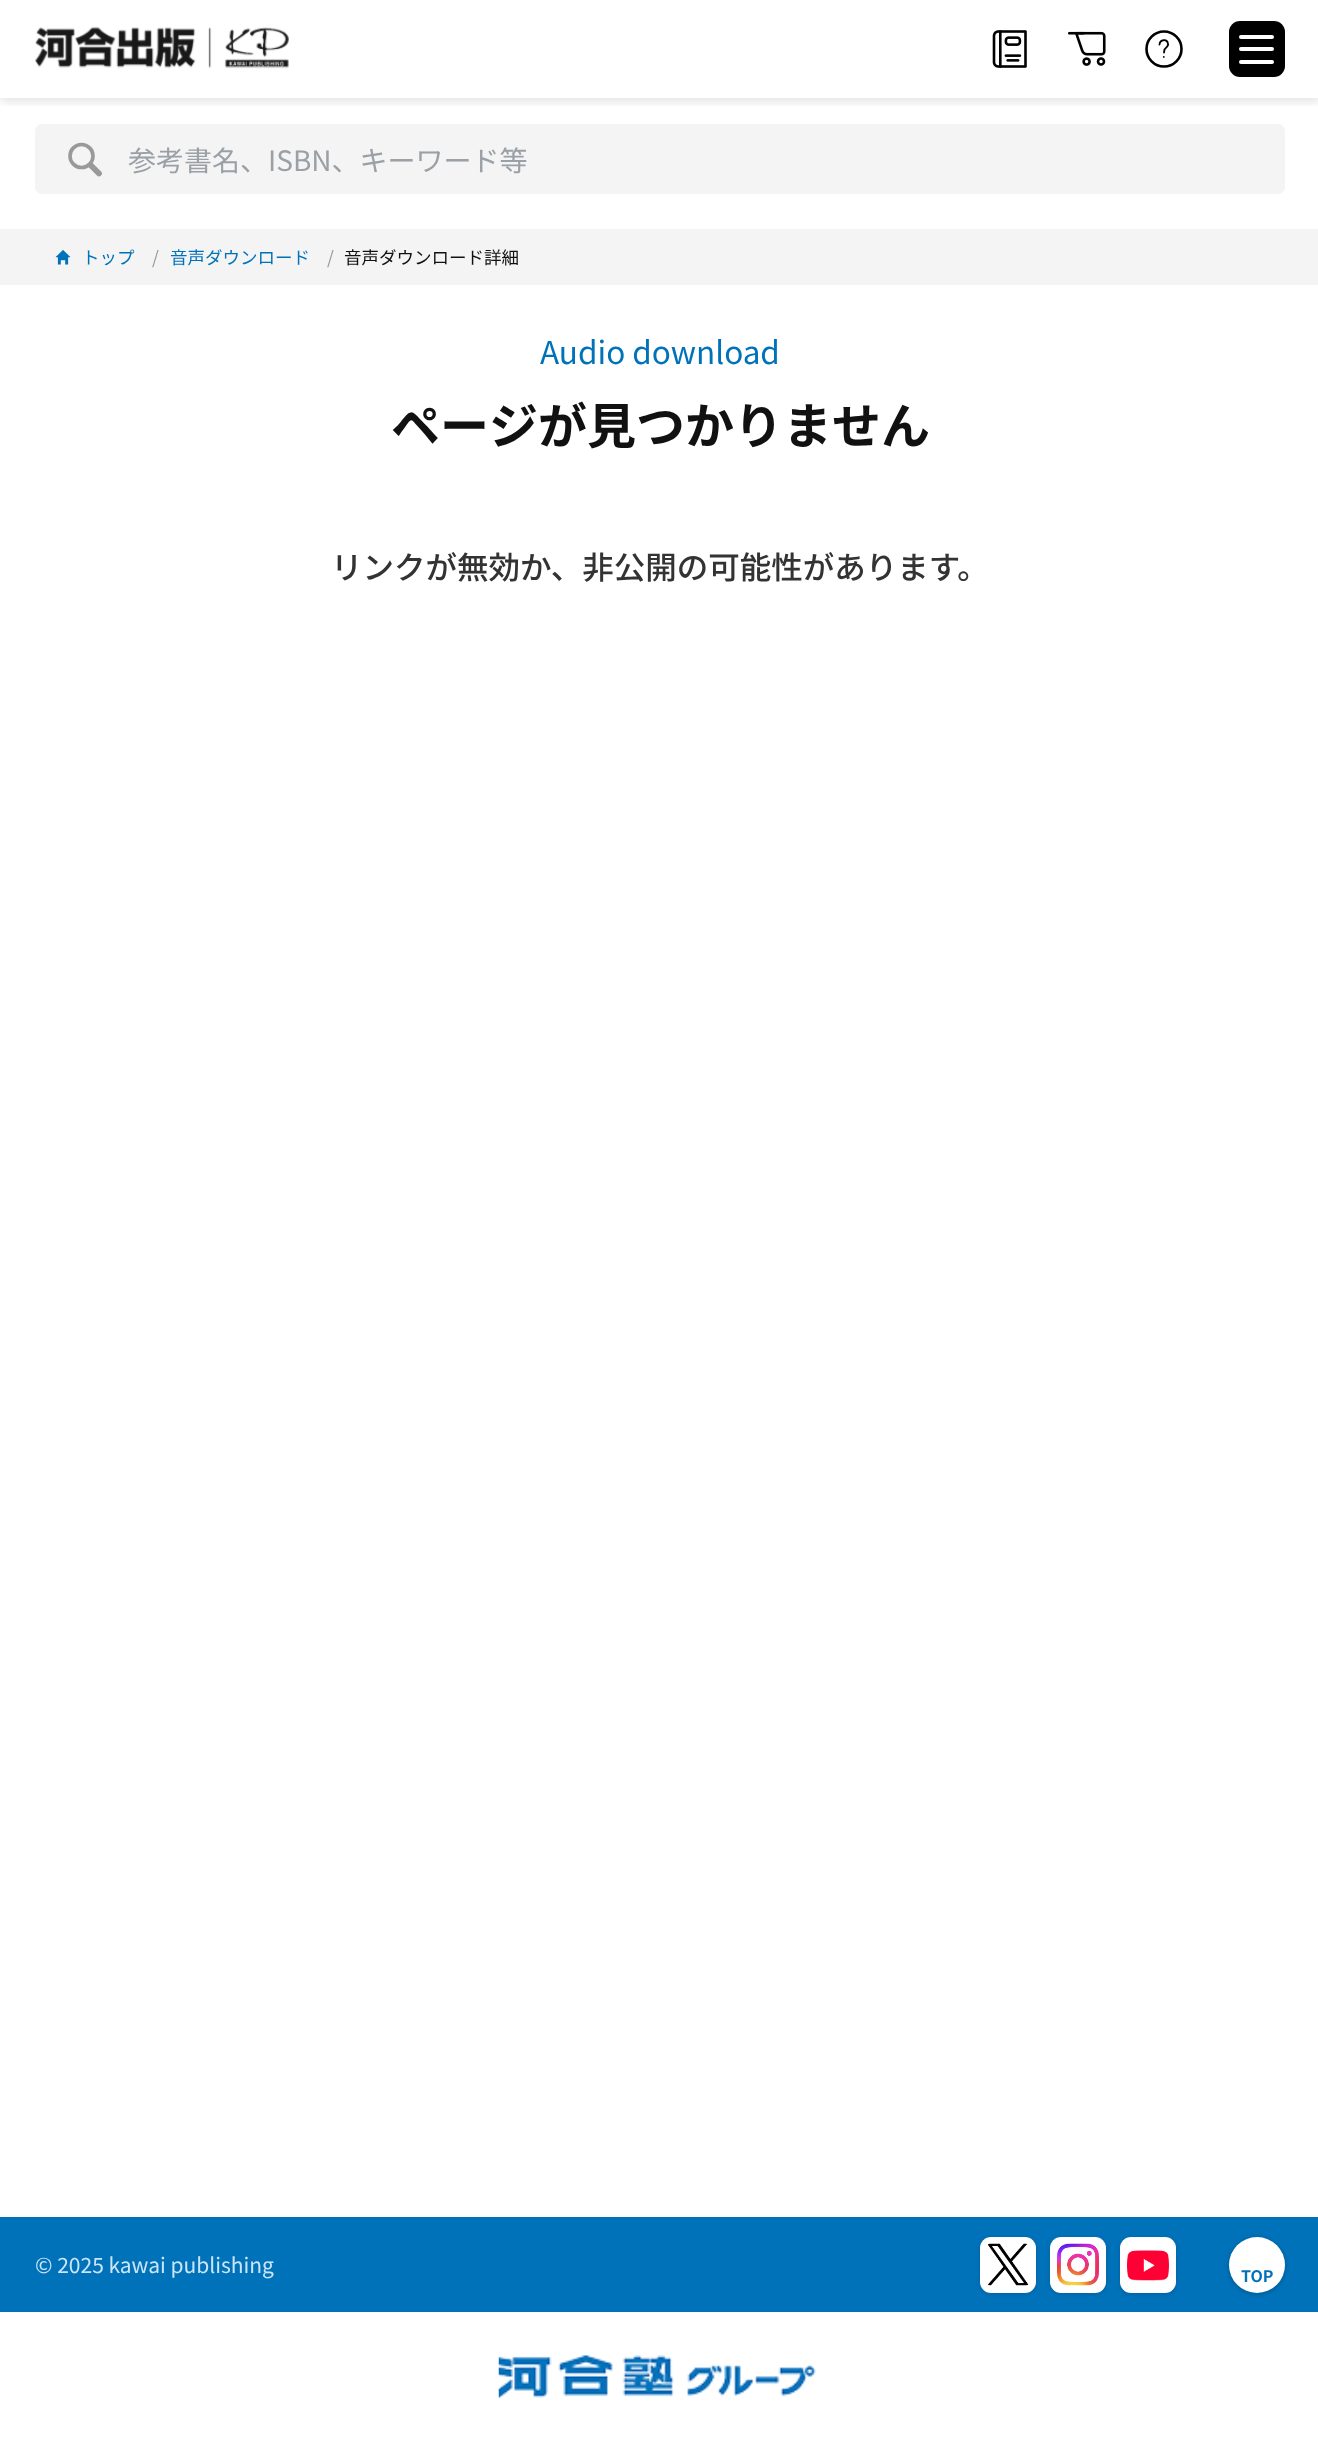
(async () => {
    const canvas = document.querySelector("canvas");
    canvas.width = 1318;
    canvas.height = 2447;
    const context = canvas.getContext("2d");
    context.miterLimit = 4;
    context.fontKerning = "normal";
    function write(s, x, y, font, color) {
        context.font = font;
        context.fillStyle = color;
        context.fillText(s, x, y);
    }
    function block(x, y, w, h, color) {
        context.fillStyle = color;
        context.fillRect(x, y, w, h);
    }
    function card(x, y, w, h, r, color) {
        context.fillStyle = color;
        context.beginPath();
        context.roundRect(x, y, w, h, r);
        context.fill();
    }
    async function photo(src, x, y, w, h) {
        const img = new Image();
        img.src = src;
        await img.decode();
        context.drawImage(img, x, y, w, h);
    }

    block(0, 0, 1318, 2447, "rgb(255, 255, 255)");
    context.save();
    context.beginPath();
    context.rect(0, 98, 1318, 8);
    context.clip();
    context.fillStyle = "rgba(0, 0, 0, 0.1)";
    context.filter = "blur(5px)";
    context.beginPath();
    context.rect(0, 4, 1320, 98);
    context.fill();
    context.filter = "none";
    context.restore();
    await photo("media/1.png", 35, 26, 254, 43);
    await photo("media/2.png", 992, 30, 35, 38);
    await photo("media/3.png", 1068, 31, 38, 35);
    context.beginPath();
    context.arc(1164, 49, 17.5, 0, Math.PI * 2);
    context.strokeStyle = "rgb(0, 0, 0)";
    context.lineWidth = 2.6;
    context.stroke();
    context.fillStyle = "rgb(0, 0, 0)";
    context.beginPath();
    context.arc(1163.8, 56.9, 0.9, 0, Math.PI * 2);
    context.fill();
    context.beginPath();
    context.moveTo(1159.5, 44.5);
    context.bezierCurveTo(1160, 39.5, 1167, 38.5, 1168, 43.5);
    context.bezierCurveTo(1169, 46.5, 1165.5, 47.5, 1164.5, 49.5);
    context.lineTo(1164, 52.5);
    context.lineWidth = 1.8;
    context.lineCap = "round";
    context.lineJoin = "round";
    context.stroke();
    card(1229, 21, 56, 56, 11, "rgb(0, 0, 0)");
    card(1239, 35, 35, 4, 2, "rgb(255, 255, 255)");
    card(1239, 47, 35, 4, 2, "rgb(255, 255, 255)");
    card(1239, 60, 35, 4, 2, "rgb(255, 255, 255)");
    card(35, 124, 1250, 70, 7, "rgb(244, 244, 244)");
    context.beginPath();
    context.moveTo(91, 165.5);
    context.lineTo(99, 173.5);
    context.strokeStyle = "rgb(153, 153, 153)";
    context.lineWidth = 5.8;
    context.stroke();
    context.beginPath();
    context.arc(81.5, 156, 11.5, 0, Math.PI * 2);
    context.lineWidth = 3.6;
    context.stroke();
    write("参考書名、ISBN、キーワード等", 128, 171, "28px Noto Sans JP", "rgb(154, 160, 166)");
    block(0, 229, 1318, 56, "rgb(244, 244, 244)");
    await photo("media/4.png", 55, 250, 16, 15);
    write("トップ", 82, 264, "17.5px Noto Sans JP", "rgb(0, 114, 186)");
    write("/", 152, 264, "17.5px Noto Sans JP", "rgb(153, 153, 153)");
    write("音声ダウンロード", 170, 264, "17.5px Noto Sans JP", "rgb(0, 114, 186)");
    write("/", 327, 264, "17.5px Noto Sans JP", "rgb(153, 153, 153)");
    write("音声ダウンロード詳細", 344, 264, "17.5px Noto Sans JP", "rgb(17, 17, 17)");
    write("Audio download", 540, 364, "31.5px Noto Sans JP", "rgb(0, 114, 186)");
    write("ページが見つかりません", 391, 444, "bold 49px Noto Sans JP", "rgb(17, 17, 17)");
    write("リンクが無効か、非公開の可能性があります。", 331, 579, "500 31.5px Noto Sans JP", "rgb(51, 51, 51)");
    block(0, 2217, 1318, 95, "rgb(0, 114, 186)");
    write("© 2025 kawai publishing", 35, 2273, "21px Noto Sans JP", "rgb(204, 229, 247)");
    context.fillStyle = "rgba(0, 0, 0, 0.15)";
    context.filter = "blur(2.5px)";
    context.beginPath();
    context.roundRect(980, 2238, 56, 56, 11);
    context.fill();
    context.filter = "none";
    card(980, 2237, 56, 56, 11, "rgb(255, 255, 255)");
    await photo("media/5.png", 987, 2243, 42, 43);
    context.fillStyle = "rgba(0, 0, 0, 0.15)";
    context.filter = "blur(2.5px)";
    context.beginPath();
    context.roundRect(1050, 2238, 56, 56, 11);
    context.fill();
    context.filter = "none";
    card(1050, 2237, 56, 56, 11, "rgb(255, 255, 255)");
    await photo("media/6.png", 1057, 2243, 42, 43);
    context.fillStyle = "rgba(0, 0, 0, 0.15)";
    context.filter = "blur(2.5px)";
    context.beginPath();
    context.roundRect(1120, 2238, 56, 56, 11);
    context.fill();
    context.filter = "none";
    card(1120, 2237, 56, 56, 11, "rgb(255, 255, 255)");
    await photo("media/7.png", 1127, 2250, 42, 31);
    context.fillStyle = "rgba(0, 0, 0, 0.25)";
    context.filter = "blur(2.5px)";
    context.beginPath();
    context.roundRect(1229, 2238, 56, 56, 28);
    context.fill();
    context.filter = "none";
    context.fillStyle = "rgb(255, 255, 255)";
    context.beginPath();
    context.arc(1257, 2265, 28, 0, Math.PI * 2);
    context.fill();
    write("TOP", 1241, 2282, "bold 16px Noto Sans JP", "rgb(0, 114, 186)");
    await photo("media/8.png", 498, 2355, 318, 43);
})();
